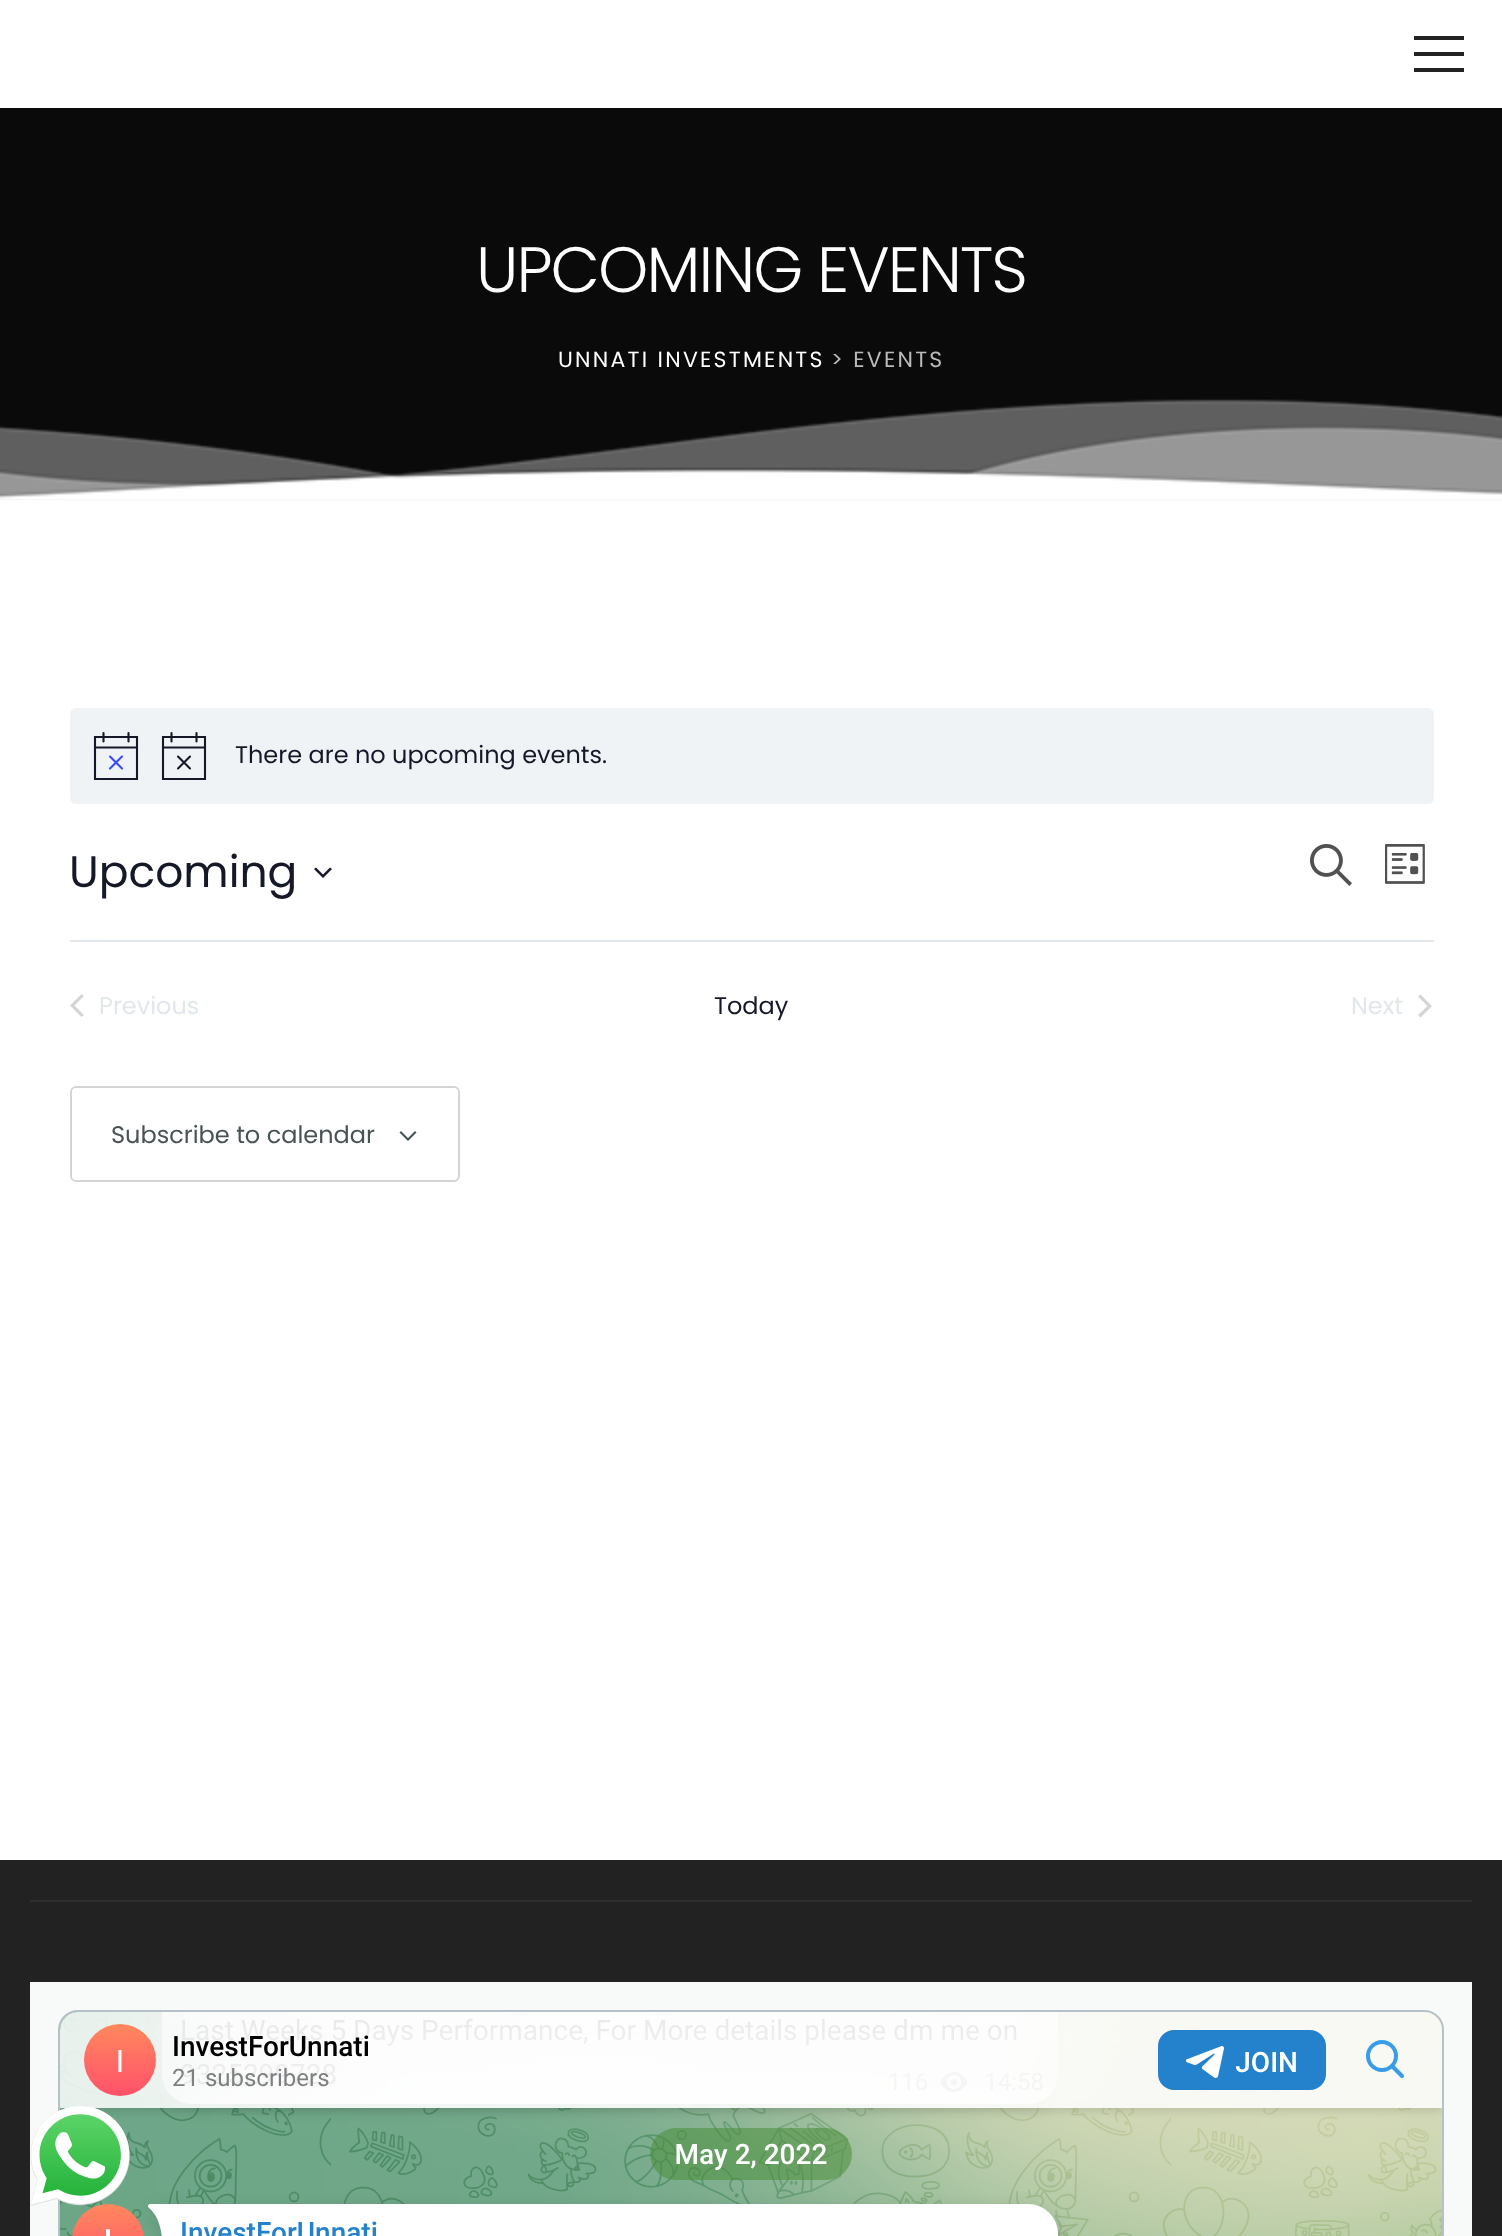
(async () => {
    const canvas = document.querySelector("canvas");
    canvas.width = 1502;
    canvas.height = 2236;
    const context = canvas.getContext("2d");
    context.miterLimit = 4;
    context.fontKerning = "normal";
    function write(s, x, y, font, color) {
        context.font = font;
        context.fillStyle = color;
        context.fillText(s, x, y);
    }
    function block(x, y, w, h, color) {
        context.fillStyle = color;
        context.fillRect(x, y, w, h);
    }
    function card(x, y, w, h, r, color) {
        context.fillStyle = color;
        context.beginPath();
        context.roundRect(x, y, w, h, r);
        context.fill();
    }
    async function photo(src, x, y, w, h) {
        const img = new Image();
        img.src = src;
        await img.decode();
        context.drawImage(img, x, y, w, h);
    }

    block(0, 0, 1502, 2236, "rgb(255, 255, 255)");
    block(0, 110, 1502, 390, "rgb(10, 10, 10)");
    block(1414, 36, 50, 4, "rgb(34, 34, 34)");
    block(1414, 52, 50, 4, "rgb(34, 34, 34)");
    block(1414, 68, 50, 4, "rgb(34, 34, 34)");
    block(0, 108, 1502, 2, "rgb(9, 9, 9)");
    context.letterSpacing = "-1.9px";
    write("UPCOMING EVENTS", 476, 292, "300 64px Poppins", "rgb(255, 255, 255)");
    context.letterSpacing = "2.25px";
    write("UNNATI INVESTMENTS", 558, 367, "22px Poppins", "rgb(255, 255, 255)");
    write("> EVENTS", 831, 367, "22px Poppins", "rgb(186, 186, 186)");
    await photo("media/1.png", 0, 399, 1502, 101);
    card(70, 708, 1364, 96, 6, "rgb(240, 243, 246)");
    context.beginPath();
    context.moveTo(95, 737);
    context.lineTo(137, 737);
    context.lineTo(137, 779);
    context.lineTo(95, 779);
    context.closePath();
    context.strokeStyle = "rgb(20, 24, 39)";
    context.lineWidth = 2.1;
    context.stroke();
    context.beginPath();
    context.moveTo(110, 756.5);
    context.lineTo(122, 768.5);
    context.moveTo(122, 756.5);
    context.lineTo(110, 768.5);
    context.strokeStyle = "rgb(51, 74, 255)";
    context.lineCap = "round";
    context.stroke();
    context.beginPath();
    context.moveTo(103.5, 733);
    context.lineTo(103.5, 741.5);
    context.moveTo(128.5, 733);
    context.lineTo(128.5, 741.5);
    context.strokeStyle = "rgb(20, 24, 39)";
    context.stroke();
    context.beginPath();
    context.moveTo(95, 747.5);
    context.lineTo(137, 747.5);
    context.lineCap = "square";
    context.stroke();
    context.beginPath();
    context.moveTo(163, 737);
    context.lineTo(205, 737);
    context.lineTo(205, 779);
    context.lineTo(163, 779);
    context.closePath();
    context.lineCap = "butt";
    context.stroke();
    context.beginPath();
    context.moveTo(178, 756.5);
    context.lineTo(190, 768.5);
    context.moveTo(190, 756.5);
    context.lineTo(178, 768.5);
    context.moveTo(171.5, 733);
    context.lineTo(171.5, 741.5);
    context.moveTo(196.5, 733);
    context.lineTo(196.5, 741.5);
    context.lineCap = "round";
    context.stroke();
    context.beginPath();
    context.moveTo(163, 747.5);
    context.lineTo(205, 747.5);
    context.lineCap = "square";
    context.stroke();
    context.letterSpacing = "0px";
    write("There are no upcoming events.", 235, 763, "24px Poppins", "rgb(20, 24, 39)");
    write("Upcoming", 69, 887, "44px Poppins", "rgb(20, 24, 39)");
    context.beginPath();
    context.moveTo(316, 867.5);
    context.lineTo(323, 874.5);
    context.lineTo(330, 867.5);
    context.lineTo(332, 869);
    context.lineTo(323, 878);
    context.lineTo(314, 869);
    context.closePath();
    context.fill();
    await photo("media/2.png", 1310, 844, 42, 42);
    await photo("media/3.png", 1385, 844, 40, 40);
    block(70, 940, 1364, 2, "rgb(226, 231, 237)");
    context.fillStyle = "rgb(213, 213, 213)";
    context.beginPath();
    context.moveTo(84, 1015);
    context.lineTo(81.5, 1017);
    context.lineTo(70, 1005.5);
    context.lineTo(81.5, 994);
    context.lineTo(84, 996);
    context.lineTo(74.5, 1005.5);
    context.closePath();
    context.fill();
    write("Previous", 99, 1014, "24px Poppins", "rgb(226, 231, 237)");
    write("Today", 714, 1014, "24px Poppins", "rgb(20, 24, 39)");
    write("Next", 1351, 1014, "24px Poppins", "rgb(226, 231, 237)");
    context.fillStyle = "rgb(213, 213, 213)";
    context.beginPath();
    context.moveTo(1418, 996.5);
    context.lineTo(1420.5, 994.5);
    context.lineTo(1432, 1006);
    context.lineTo(1420.5, 1017.5);
    context.lineTo(1418, 1015);
    context.lineTo(1427.5, 1006);
    context.closePath();
    context.fill();
    context.beginPath();
    context.roundRect(71, 1087, 388, 94, 5);
    context.strokeStyle = "rgb(213, 213, 213)";
    context.lineWidth = 2;
    context.stroke();
    write("Subscribe to calendar", 111, 1143, "24px Poppins", "rgb(73, 82, 85)");
    context.beginPath();
    context.moveTo(401, 1131);
    context.lineTo(408, 1138);
    context.lineTo(415, 1131);
    context.lineTo(416.5, 1132.5);
    context.lineTo(408, 1141);
    context.lineTo(399.5, 1132.5);
    context.closePath();
    context.fill("evenodd");
    block(0, 1860, 1502, 376, "rgb(34, 34, 34)");
    block(30, 1900, 1442, 2, "rgb(46, 46, 46)");
    block(30, 1982, 1442, 254, "rgb(248, 249, 249)");
    context.beginPath();
    context.roundRect(59, 2011, 1384, 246, 19);
    context.strokeStyle = "rgb(181, 192, 200)";
    context.stroke();
    await photo("media/4.png", 60, 2012, 1382, 224);
    await photo("media/5.png", 30, 2106, 100, 100);
})();
